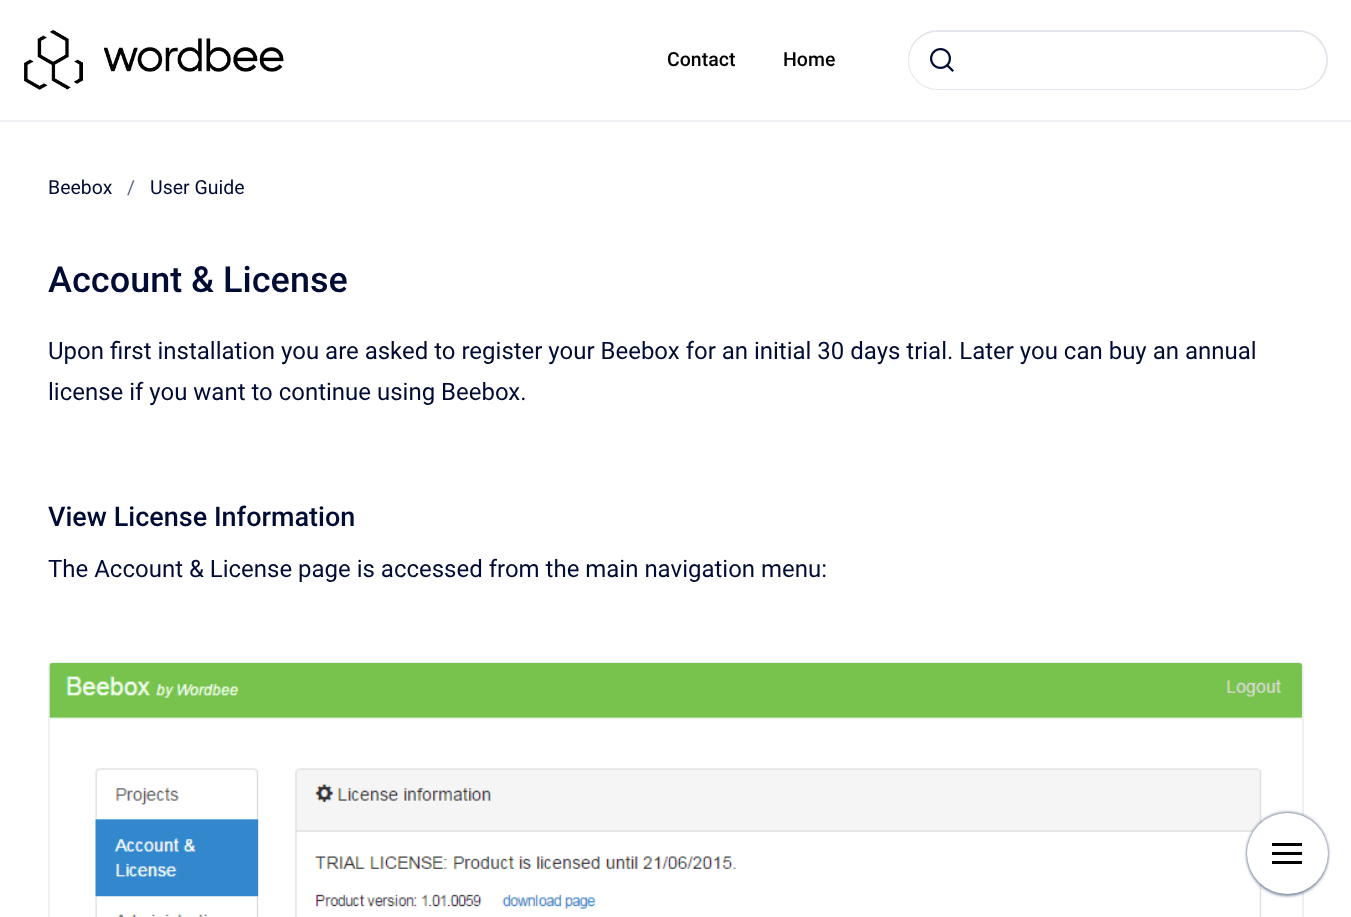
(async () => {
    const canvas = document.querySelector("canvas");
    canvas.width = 1351;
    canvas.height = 917;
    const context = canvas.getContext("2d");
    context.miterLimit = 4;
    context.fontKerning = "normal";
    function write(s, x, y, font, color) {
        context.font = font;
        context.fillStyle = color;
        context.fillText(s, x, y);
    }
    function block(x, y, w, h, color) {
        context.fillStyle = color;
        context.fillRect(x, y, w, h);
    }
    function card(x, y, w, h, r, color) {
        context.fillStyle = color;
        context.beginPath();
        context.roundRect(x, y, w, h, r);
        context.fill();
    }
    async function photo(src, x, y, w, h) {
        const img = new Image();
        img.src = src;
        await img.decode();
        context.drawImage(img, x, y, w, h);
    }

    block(0, 0, 1351, 917, "rgb(255, 255, 255)");
    block(0, 120, 1351, 2, "rgb(239, 240, 244)");
    await photo("media/1.png", 24, 30, 260, 60);
    write("Contact", 667, 66, "500 19.5px Roboto", "rgb(0, 0, 0)");
    write("Home", 783, 66, "500 19.5px Roboto", "rgb(0, 0, 0)");
    context.beginPath();
    context.roundRect(909, 31, 418, 58, 29);
    context.strokeStyle = "rgb(226, 229, 235)";
    context.lineWidth = 2;
    context.stroke();
    card(909, 32, 417, 57, 28.5, "rgb(255, 255, 255)");
    await photo("media/2.png", 930, 48, 24, 24);
    write("Beebox", 48, 194, "19.5px Roboto", "rgb(0, 12, 52)");
    write("/", 127, 194, "19.5px Roboto", "rgb(93, 107, 143)");
    write("User Guide", 150, 194, "19.5px Roboto", "rgb(0, 12, 52)");
    write("Account & License", 48, 292, "500 36px Roboto", "rgb(0, 12, 52)");
    write("Upon first installation you are asked to register your Beebox for an initial 30 days trial. Later you can buy an annual", 48, 359, "24px Roboto", "rgb(0, 12, 52)");
    write("license if you want to continue using Beebox.", 48, 400, "24px Roboto", "rgb(0, 12, 52)");
    write("View License Information", 48, 526, "500 27px Roboto", "rgb(0, 12, 52)");
    write("The Account & License page is accessed from the main navigation menu:", 48, 577, "24px Roboto", "rgb(0, 12, 52)");
    context.beginPath();
    context.roundRect(49, 663, 1254, 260, 4);
    context.strokeStyle = "rgb(239, 240, 244)";
    context.stroke();
    await photo("media/3.png", 49, 663, 1253, 254);
    context.fillStyle = "rgb(122, 134, 154)";
    context.filter = "blur(1.5px)";
    context.beginPath();
    context.roundRect(1247, 812, 81, 81, 40.5);
    context.fill();
    context.filter = "none";
    context.filter = "blur(1.5px)";
    context.beginPath();
    context.roundRect(1247, 815, 81, 81, 40.5);
    context.fill();
    context.filter = "none";
    context.fillStyle = "rgb(255, 255, 255)";
    context.beginPath();
    context.arc(1287.5, 853.5, 40.5, 0, Math.PI * 2);
    context.fill();
    block(1272, 843, 30, 3, "rgb(0, 0, 0)");
    block(1272, 852, 30, 3, "rgb(0, 0, 0)");
    block(1272, 861, 30, 3, "rgb(0, 0, 0)");
})();
